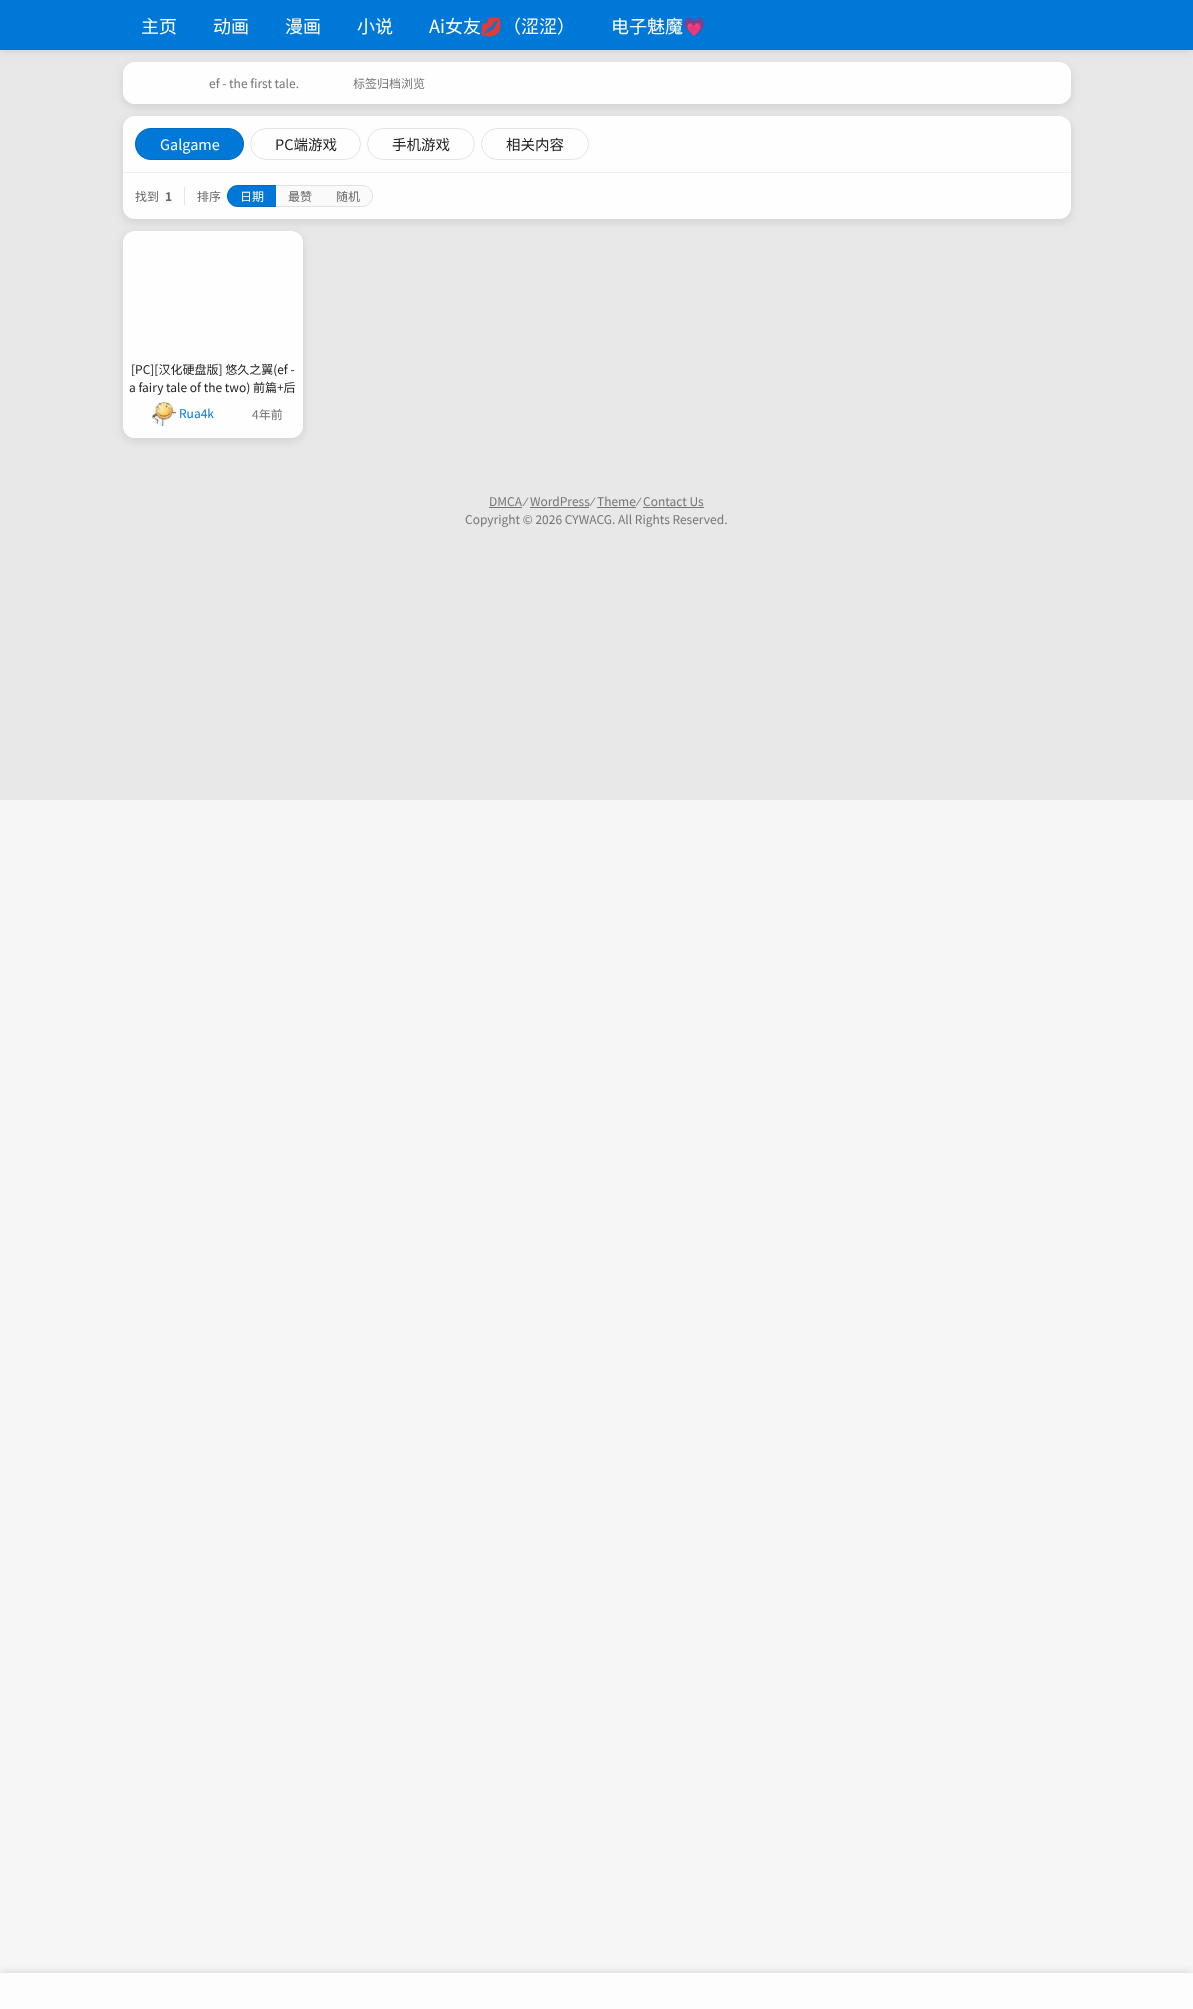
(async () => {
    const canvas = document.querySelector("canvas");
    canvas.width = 1193;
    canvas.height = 2009;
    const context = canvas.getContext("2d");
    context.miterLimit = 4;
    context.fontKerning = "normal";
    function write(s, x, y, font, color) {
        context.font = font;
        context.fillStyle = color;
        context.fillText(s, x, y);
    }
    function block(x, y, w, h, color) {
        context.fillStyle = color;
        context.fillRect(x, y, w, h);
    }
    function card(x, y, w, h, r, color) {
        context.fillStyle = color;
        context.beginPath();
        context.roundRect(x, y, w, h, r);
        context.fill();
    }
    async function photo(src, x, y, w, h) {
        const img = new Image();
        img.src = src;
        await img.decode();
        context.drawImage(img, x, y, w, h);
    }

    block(0, 0, 1193, 2009, "rgb(246, 246, 246)");
    block(0, 50, 1193, 750, "rgb(232, 232, 232)");
    context.save();
    context.beginPath();
    context.moveTo(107, 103);
    context.lineTo(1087, 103);
    context.lineTo(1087, 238);
    context.lineTo(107, 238);
    context.closePath();
    context.moveTo(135, 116);
    context.lineTo(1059, 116);
    context.bezierCurveTo(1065.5, 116, 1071, 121.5, 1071, 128);
    context.lineTo(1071, 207);
    context.bezierCurveTo(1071, 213.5, 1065.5, 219, 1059, 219);
    context.lineTo(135, 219);
    context.bezierCurveTo(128.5, 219, 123, 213.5, 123, 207);
    context.lineTo(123, 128);
    context.bezierCurveTo(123, 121.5, 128.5, 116, 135, 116);
    context.closePath();
    context.clip("evenodd");
    context.fillStyle = "rgba(0, 0, 0, 0.1)";
    context.filter = "blur(5px)";
    context.beginPath();
    context.roundRect(123, 119, 948, 103, 12);
    context.fill();
    context.filter = "none";
    context.restore();
    card(123, 116, 948, 103, 12, "rgba(255, 255, 255, 0.95)");
    context.save();
    context.beginPath();
    context.moveTo(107, 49);
    context.lineTo(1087, 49);
    context.lineTo(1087, 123);
    context.lineTo(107, 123);
    context.closePath();
    context.moveTo(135, 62);
    context.lineTo(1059, 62);
    context.bezierCurveTo(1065.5, 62, 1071, 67.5, 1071, 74);
    context.lineTo(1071, 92);
    context.bezierCurveTo(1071, 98.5, 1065.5, 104, 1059, 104);
    context.lineTo(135, 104);
    context.bezierCurveTo(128.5, 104, 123, 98.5, 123, 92);
    context.lineTo(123, 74);
    context.bezierCurveTo(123, 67.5, 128.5, 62, 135, 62);
    context.closePath();
    context.clip("evenodd");
    context.fillStyle = "rgba(0, 0, 0, 0.1)";
    context.filter = "blur(5px)";
    context.beginPath();
    context.roundRect(123, 65, 948, 42, 12);
    context.fill();
    context.filter = "none";
    context.restore();
    card(123, 62, 948, 42, 12, "rgba(255, 255, 255, 0.95)");
    context.fillStyle = "rgba(0, 0, 0, 0.15)";
    context.filter = "blur(5px)";
    context.beginPath();
    context.rect(0, 0, 1193, 50);
    context.fill();
    context.filter = "none";
    block(0, 0, 1193, 50, "rgb(0, 120, 215)");
    write("主页", 141, 33, "18px Noto Sans CJK SC", "rgb(255, 255, 255)");
    write("动画", 213, 33, "18px Noto Sans CJK SC", "rgb(255, 255, 255)");
    write("漫画", 285, 33, "18px Noto Sans CJK SC", "rgb(255, 255, 255)");
    write("小说", 357, 33, "18px Noto Sans CJK SC", "rgb(255, 255, 255)");
    write("Ai女友", 429, 33, "18px Noto Sans CJK SC", "rgb(255, 255, 255)");
    write("💋", 480, 33, "18px Noto Color Emoji", "rgb(255, 255, 255)");
    write("（涩涩）", 503, 33, "18px Noto Sans CJK SC", "rgb(255, 255, 255)");
    write("电子魅魔", 611, 33, "18px Noto Sans CJK SC", "rgb(255, 255, 255)");
    write("💗", 683, 33, "18px Noto Color Emoji", "rgb(255, 255, 255)");
    write("ef - the first tale.", 209, 88, "12px Noto Sans CJK SC", "rgb(117, 117, 117)");
    write("标签归档浏览", 353, 88, "12px Noto Sans CJK SC", "rgb(117, 117, 117)");
    block(123, 172, 948, 1, "rgb(239, 239, 239)");
    card(135, 128, 109, 32, 16, "rgb(0, 120, 215)");
    context.beginPath();
    context.roundRect(135.5, 128.5, 108, 31, 15.5);
    context.strokeStyle = "rgba(0, 0, 0, 0.1)";
    context.stroke();
    write("Galgame", 160, 150, "14.5px Noto Sans CJK SC", "rgb(255, 255, 255)");
    context.beginPath();
    context.roundRect(250.5, 128.5, 110, 31, 15.5);
    context.strokeStyle = "rgb(229, 229, 229)";
    context.stroke();
    write("PC端游戏", 275, 150, "14.5px Noto Sans CJK SC", "rgb(33, 33, 33)");
    context.beginPath();
    context.roundRect(367.5, 128.5, 107, 31, 15.5);
    context.stroke();
    write("手机游戏", 392, 150, "14.5px Noto Sans CJK SC", "rgb(33, 33, 33)");
    context.beginPath();
    context.roundRect(481.5, 128.5, 107, 31, 15.5);
    context.stroke();
    write("相关内容", 506, 150, "14.5px Noto Sans CJK SC", "rgb(33, 33, 33)");
    block(184, 187, 1, 18, "rgb(228, 228, 228)");
    write("找到", 135, 201, "12px Noto Sans CJK SC", "rgb(102, 102, 102)");
    write("1", 165, 201, "bold 12px Noto Sans CJK SC", "rgb(102, 102, 102)");
    write("排序", 197, 201, "12px Noto Sans CJK SC", "rgb(102, 102, 102)");
    context.fillStyle = "rgb(0, 120, 215)";
    context.beginPath();
    context.roundRect(227, 185, 49, 22, [11, 0, 0, 11]);
    context.fill();
    context.fillStyle = "rgba(0, 0, 0, 0.1)";
    context.beginPath();
    context.moveTo(238, 185);
    context.lineTo(276, 185);
    context.lineTo(276, 207);
    context.lineTo(238, 207);
    context.bezierCurveTo(232, 207, 227, 202, 227, 196);
    context.bezierCurveTo(227, 190, 232, 185, 238, 185);
    context.closePath();
    context.moveTo(238, 186);
    context.lineTo(276, 186);
    context.lineTo(276, 206);
    context.lineTo(238, 206);
    context.bezierCurveTo(232, 206, 228, 202, 228, 196);
    context.bezierCurveTo(228, 190, 232, 186, 238, 186);
    context.closePath();
    context.fill("evenodd");
    write("日期", 240, 201, "12px Noto Sans CJK SC", "rgb(255, 255, 255)");
    block(276, 186, 48, 20, "rgb(250, 250, 250)");
    block(276, 185, 48, 1, "rgb(225, 225, 225)");
    block(276, 206, 48, 1, "rgb(225, 225, 225)");
    write("最赞", 288, 201, "12px Noto Sans CJK SC", "rgb(102, 102, 102)");
    context.fillStyle = "rgb(250, 250, 250)";
    context.beginPath();
    context.roundRect(324, 185, 49, 22, [0, 11, 11, 0]);
    context.fill();
    context.fillStyle = "rgb(225, 225, 225)";
    context.beginPath();
    context.moveTo(324, 185);
    context.lineTo(362, 185);
    context.bezierCurveTo(368, 185, 373, 190, 373, 196);
    context.bezierCurveTo(373, 202, 368, 207, 362, 207);
    context.lineTo(324, 207);
    context.closePath();
    context.moveTo(324, 186);
    context.lineTo(362, 186);
    context.bezierCurveTo(368, 186, 372, 190, 372, 196);
    context.bezierCurveTo(372, 202, 368, 206, 362, 206);
    context.lineTo(324, 206);
    context.closePath();
    context.fill("evenodd");
    write("随机", 336, 201, "12px Noto Sans CJK SC", "rgb(102, 102, 102)");
    context.save();
    context.beginPath();
    context.moveTo(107, 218);
    context.lineTo(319, 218);
    context.lineTo(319, 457);
    context.lineTo(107, 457);
    context.closePath();
    context.moveTo(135, 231);
    context.lineTo(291, 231);
    context.bezierCurveTo(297.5, 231, 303, 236.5, 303, 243);
    context.lineTo(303, 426);
    context.bezierCurveTo(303, 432.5, 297.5, 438, 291, 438);
    context.lineTo(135, 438);
    context.bezierCurveTo(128.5, 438, 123, 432.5, 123, 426);
    context.lineTo(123, 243);
    context.bezierCurveTo(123, 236.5, 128.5, 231, 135, 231);
    context.closePath();
    context.clip("evenodd");
    context.fillStyle = "rgba(0, 0, 0, 0.1)";
    context.filter = "blur(5px)";
    context.beginPath();
    context.roundRect(123, 234, 180, 207, 12);
    context.fill();
    context.filter = "none";
    context.restore();
    card(123, 231, 180, 207, 12, "rgba(255, 255, 255, 0.95)");
    write("[PC][汉化硬盘版] 悠久之翼(ef -", 131, 374, "12px Noto Sans CJK SC", "rgb(33, 33, 33)");
    write("a fairy tale of the two) 前篇+后", 129, 392, "12px Noto Sans CJK SC", "rgb(33, 33, 33)");
    await photo("media/1.png", 152, 402, 24, 24);
    write("Rua4k", 179, 418, "12px Noto Sans CJK SC", "rgb(0, 120, 215)");
    write("4年前", 252, 419, "12px Noto Sans CJK SC", "rgb(117, 117, 117)");
    write("DMCA", 489, 506, "12px Noto Sans CJK SC", "rgb(117, 117, 117)");
    block(489, 507, 33, 1, "rgb(117, 117, 117)");
    write("⁄", 525, 506, "12px Liberation Sans", "rgb(117, 117, 117)");
    write("WordPress", 530, 506, "12px Noto Sans CJK SC", "rgb(117, 117, 117)");
    block(530, 507, 59, 1, "rgb(117, 117, 117)");
    write("⁄", 592, 506, "12px Liberation Sans", "rgb(117, 117, 117)");
    write("Theme", 597, 506, "12px Noto Sans CJK SC", "rgb(117, 117, 117)");
    block(597, 507, 39, 1, "rgb(117, 117, 117)");
    write("⁄", 638, 506, "12px Liberation Sans", "rgb(117, 117, 117)");
    write("Contact Us", 643, 506, "12px Noto Sans CJK SC", "rgb(117, 117, 117)");
    block(643, 507, 61, 1, "rgb(117, 117, 117)");
    write("Copyright © 2026 CYWACG. All Rights Reserved.", 465, 524, "12px Noto Sans CJK SC", "rgb(117, 117, 117)");
    context.fillStyle = "rgba(0, 0, 0, 0.15)";
    context.filter = "blur(5px)";
    context.beginPath();
    context.rect(0, 1973, 1193, 36);
    context.fill();
    context.filter = "none";
    block(0, 1973, 1193, 36, "rgb(253, 253, 253)");
})();
